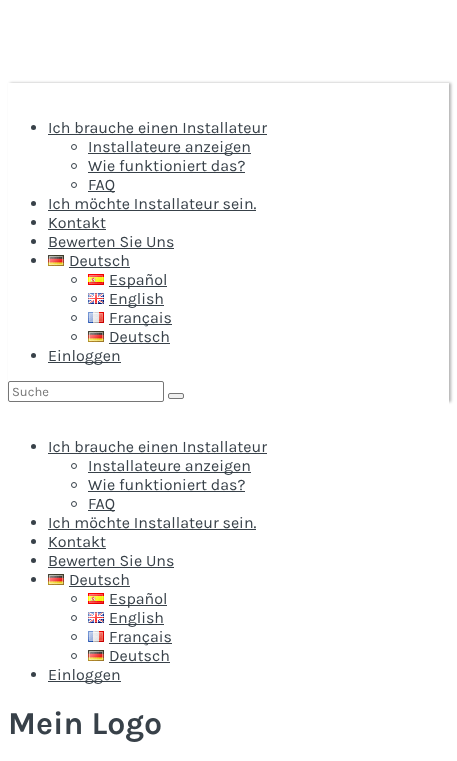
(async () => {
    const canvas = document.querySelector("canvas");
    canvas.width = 457;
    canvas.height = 761;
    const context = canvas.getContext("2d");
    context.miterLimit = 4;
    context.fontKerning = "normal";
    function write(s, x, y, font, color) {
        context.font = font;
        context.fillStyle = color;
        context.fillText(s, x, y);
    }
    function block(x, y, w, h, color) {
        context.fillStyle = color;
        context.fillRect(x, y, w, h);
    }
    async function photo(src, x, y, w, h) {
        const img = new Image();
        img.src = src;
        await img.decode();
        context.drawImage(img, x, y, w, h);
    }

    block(0, 0, 457, 761, "rgb(255, 255, 255)");
    context.save();
    context.beginPath();
    context.moveTo(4, 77);
    context.lineTo(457, 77);
    context.lineTo(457, 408);
    context.lineTo(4, 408);
    context.closePath();
    context.moveTo(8, 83);
    context.lineTo(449, 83);
    context.lineTo(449, 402);
    context.lineTo(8, 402);
    context.closePath();
    context.clip("evenodd");
    context.fillStyle = "rgba(0, 0, 0, 0.3)";
    context.filter = "blur(1.5px)";
    context.beginPath();
    context.rect(10, 83, 441, 319);
    context.fill();
    context.filter = "none";
    context.restore();
    context.fillStyle = "rgb(56, 65, 73)";
    context.beginPath();
    context.arc(33.5, 127.5, 2.5, 0, Math.PI * 2);
    context.fill();
    write("Ich brauche einen Installateur", 48, 133, "16px Karla", "rgb(56, 65, 73)");
    block(48, 134, 219, 1, "rgb(56, 65, 73)");
    context.beginPath();
    context.arc(74, 147, 2.5, 0, Math.PI * 2);
    context.strokeStyle = "rgb(56, 65, 73)";
    context.stroke();
    block(88, 153, 163, 1, "rgb(56, 65, 73)");
    write("Installateure anzeigen", 88, 152, "16px Karla", "rgb(56, 65, 73)");
    context.beginPath();
    context.arc(74, 166, 2.5, 0, Math.PI * 2);
    context.stroke();
    write("Wie funktioniert das?", 88, 171, "16px Karla", "rgb(56, 65, 73)");
    block(88, 172, 157, 1, "rgb(56, 65, 73)");
    context.beginPath();
    context.arc(74, 185, 2.5, 0, Math.PI * 2);
    context.stroke();
    block(88, 191, 27, 1, "rgb(56, 65, 73)");
    write("FAQ", 88, 190, "16px Karla", "rgb(56, 65, 73)");
    context.beginPath();
    context.arc(33.5, 203.5, 2.5, 0, Math.PI * 2);
    context.fill();
    write("Ich möchte Installateur sein.", 48, 209, "16px Karla", "rgb(56, 65, 73)");
    block(48, 210, 208, 1, "rgb(56, 65, 73)");
    context.beginPath();
    context.arc(33.5, 222.5, 2.5, 0, Math.PI * 2);
    context.fill();
    write("Kontakt", 48, 228, "16px Karla", "rgb(56, 65, 73)");
    block(48, 229, 58, 1, "rgb(56, 65, 73)");
    context.beginPath();
    context.arc(33.5, 241.5, 2.5, 0, Math.PI * 2);
    context.fill();
    write("Bewerten Sie Uns", 48, 247, "16px Karla", "rgb(56, 65, 73)");
    block(48, 248, 126, 1, "rgb(56, 65, 73)");
    context.beginPath();
    context.arc(33.5, 260.5, 2.5, 0, Math.PI * 2);
    context.fill();
    await photo("media/1.png", 48, 255, 16, 11);
    write("Deutsch", 69, 266, "16px Karla", "rgb(56, 65, 73)");
    block(69, 267, 61, 1, "rgb(56, 65, 73)");
    context.beginPath();
    context.arc(74, 280, 2.5, 0, Math.PI * 2);
    context.stroke();
    await photo("media/2.png", 88, 274, 16, 11);
    block(109, 286, 58, 1, "rgb(56, 65, 73)");
    write("Español", 109, 285, "16px Karla", "rgb(56, 65, 73)");
    context.beginPath();
    context.arc(74, 299, 2.5, 0, Math.PI * 2);
    context.stroke();
    await photo("media/3.png", 88, 293, 16, 11);
    block(109, 305, 55, 1, "rgb(56, 65, 73)");
    write("English", 109, 304, "16px Karla", "rgb(56, 65, 73)");
    context.beginPath();
    context.arc(74, 318, 2.5, 0, Math.PI * 2);
    context.stroke();
    await photo("media/4.png", 88, 312, 16, 11);
    block(109, 324, 63, 1, "rgb(56, 65, 73)");
    write("Français", 109, 323, "16px Karla", "rgb(56, 65, 73)");
    context.beginPath();
    context.arc(74, 337, 2.5, 0, Math.PI * 2);
    context.stroke();
    await photo("media/1.png", 88, 331, 16, 11);
    write("Deutsch", 109, 342, "16px Karla", "rgb(56, 65, 73)");
    block(109, 343, 61, 1, "rgb(56, 65, 73)");
    context.beginPath();
    context.arc(33.5, 355.5, 2.5, 0, Math.PI * 2);
    context.fill();
    block(48, 362, 73, 1, "rgb(56, 65, 73)");
    write("Einloggen", 48, 361, "16px Karla", "rgb(56, 65, 73)");
    context.beginPath();
    context.roundRect(8.5, 381.5, 155, 20, 1.5);
    context.strokeStyle = "rgb(118, 118, 118)";
    context.stroke();
    write("Suche", 12, 396, "13px Karla", "rgb(117, 117, 117)");
    context.fillStyle = "rgb(239, 239, 239)";
    context.beginPath();
    context.roundRect(168.5, 393.5, 15, 5, 1.5);
    context.fill();
    context.stroke();
    block(8, 402, 441, 3, "rgb(255, 255, 255)");
    context.fillStyle = "rgb(56, 65, 73)";
    context.beginPath();
    context.arc(33.5, 446.5, 2.5, 0, Math.PI * 2);
    context.fill();
    write("Ich brauche einen Installateur", 48, 452, "16px Karla", "rgb(56, 65, 73)");
    block(48, 453, 219, 1, "rgb(56, 65, 73)");
    context.beginPath();
    context.arc(74, 466, 2.5, 0, Math.PI * 2);
    context.strokeStyle = "rgb(56, 65, 73)";
    context.stroke();
    block(88, 472, 163, 1, "rgb(56, 65, 73)");
    write("Installateure anzeigen", 88, 471, "16px Karla", "rgb(56, 65, 73)");
    context.beginPath();
    context.arc(74, 485, 2.5, 0, Math.PI * 2);
    context.stroke();
    write("Wie funktioniert das?", 88, 490, "16px Karla", "rgb(56, 65, 73)");
    block(88, 491, 157, 1, "rgb(56, 65, 73)");
    context.beginPath();
    context.arc(74, 504, 2.5, 0, Math.PI * 2);
    context.stroke();
    block(88, 510, 27, 1, "rgb(56, 65, 73)");
    write("FAQ", 88, 509, "16px Karla", "rgb(56, 65, 73)");
    context.beginPath();
    context.arc(33.5, 522.5, 2.5, 0, Math.PI * 2);
    context.fill();
    write("Ich möchte Installateur sein.", 48, 528, "16px Karla", "rgb(56, 65, 73)");
    block(48, 529, 208, 1, "rgb(56, 65, 73)");
    context.beginPath();
    context.arc(33.5, 541.5, 2.5, 0, Math.PI * 2);
    context.fill();
    write("Kontakt", 48, 547, "16px Karla", "rgb(56, 65, 73)");
    block(48, 548, 58, 1, "rgb(56, 65, 73)");
    context.beginPath();
    context.arc(33.5, 560.5, 2.5, 0, Math.PI * 2);
    context.fill();
    write("Bewerten Sie Uns", 48, 566, "16px Karla", "rgb(56, 65, 73)");
    block(48, 567, 126, 1, "rgb(56, 65, 73)");
    context.beginPath();
    context.arc(33.5, 579.5, 2.5, 0, Math.PI * 2);
    context.fill();
    await photo("media/1.png", 48, 574, 16, 11);
    write("Deutsch", 69, 585, "16px Karla", "rgb(56, 65, 73)");
    block(69, 586, 61, 1, "rgb(56, 65, 73)");
    context.beginPath();
    context.arc(74, 599, 2.5, 0, Math.PI * 2);
    context.stroke();
    await photo("media/2.png", 88, 593, 16, 11);
    block(109, 605, 58, 1, "rgb(56, 65, 73)");
    write("Español", 109, 604, "16px Karla", "rgb(56, 65, 73)");
    context.beginPath();
    context.arc(74, 618, 2.5, 0, Math.PI * 2);
    context.stroke();
    await photo("media/3.png", 88, 612, 16, 11);
    block(109, 624, 55, 1, "rgb(56, 65, 73)");
    write("English", 109, 623, "16px Karla", "rgb(56, 65, 73)");
    context.beginPath();
    context.arc(74, 637, 2.5, 0, Math.PI * 2);
    context.stroke();
    await photo("media/4.png", 88, 631, 16, 11);
    block(109, 643, 63, 1, "rgb(56, 65, 73)");
    write("Français", 109, 642, "16px Karla", "rgb(56, 65, 73)");
    context.beginPath();
    context.arc(74, 656, 2.5, 0, Math.PI * 2);
    context.stroke();
    await photo("media/1.png", 88, 650, 16, 11);
    write("Deutsch", 109, 661, "16px Karla", "rgb(56, 65, 73)");
    block(109, 662, 61, 1, "rgb(56, 65, 73)");
    context.beginPath();
    context.arc(33.5, 674.5, 2.5, 0, Math.PI * 2);
    context.fill();
    block(48, 681, 73, 1, "rgb(56, 65, 73)");
    write("Einloggen", 48, 680, "16px Karla", "rgb(56, 65, 73)");
    write("Mein Logo", 8, 734, "bold 32px Karla", "rgb(56, 65, 73)");
})();
